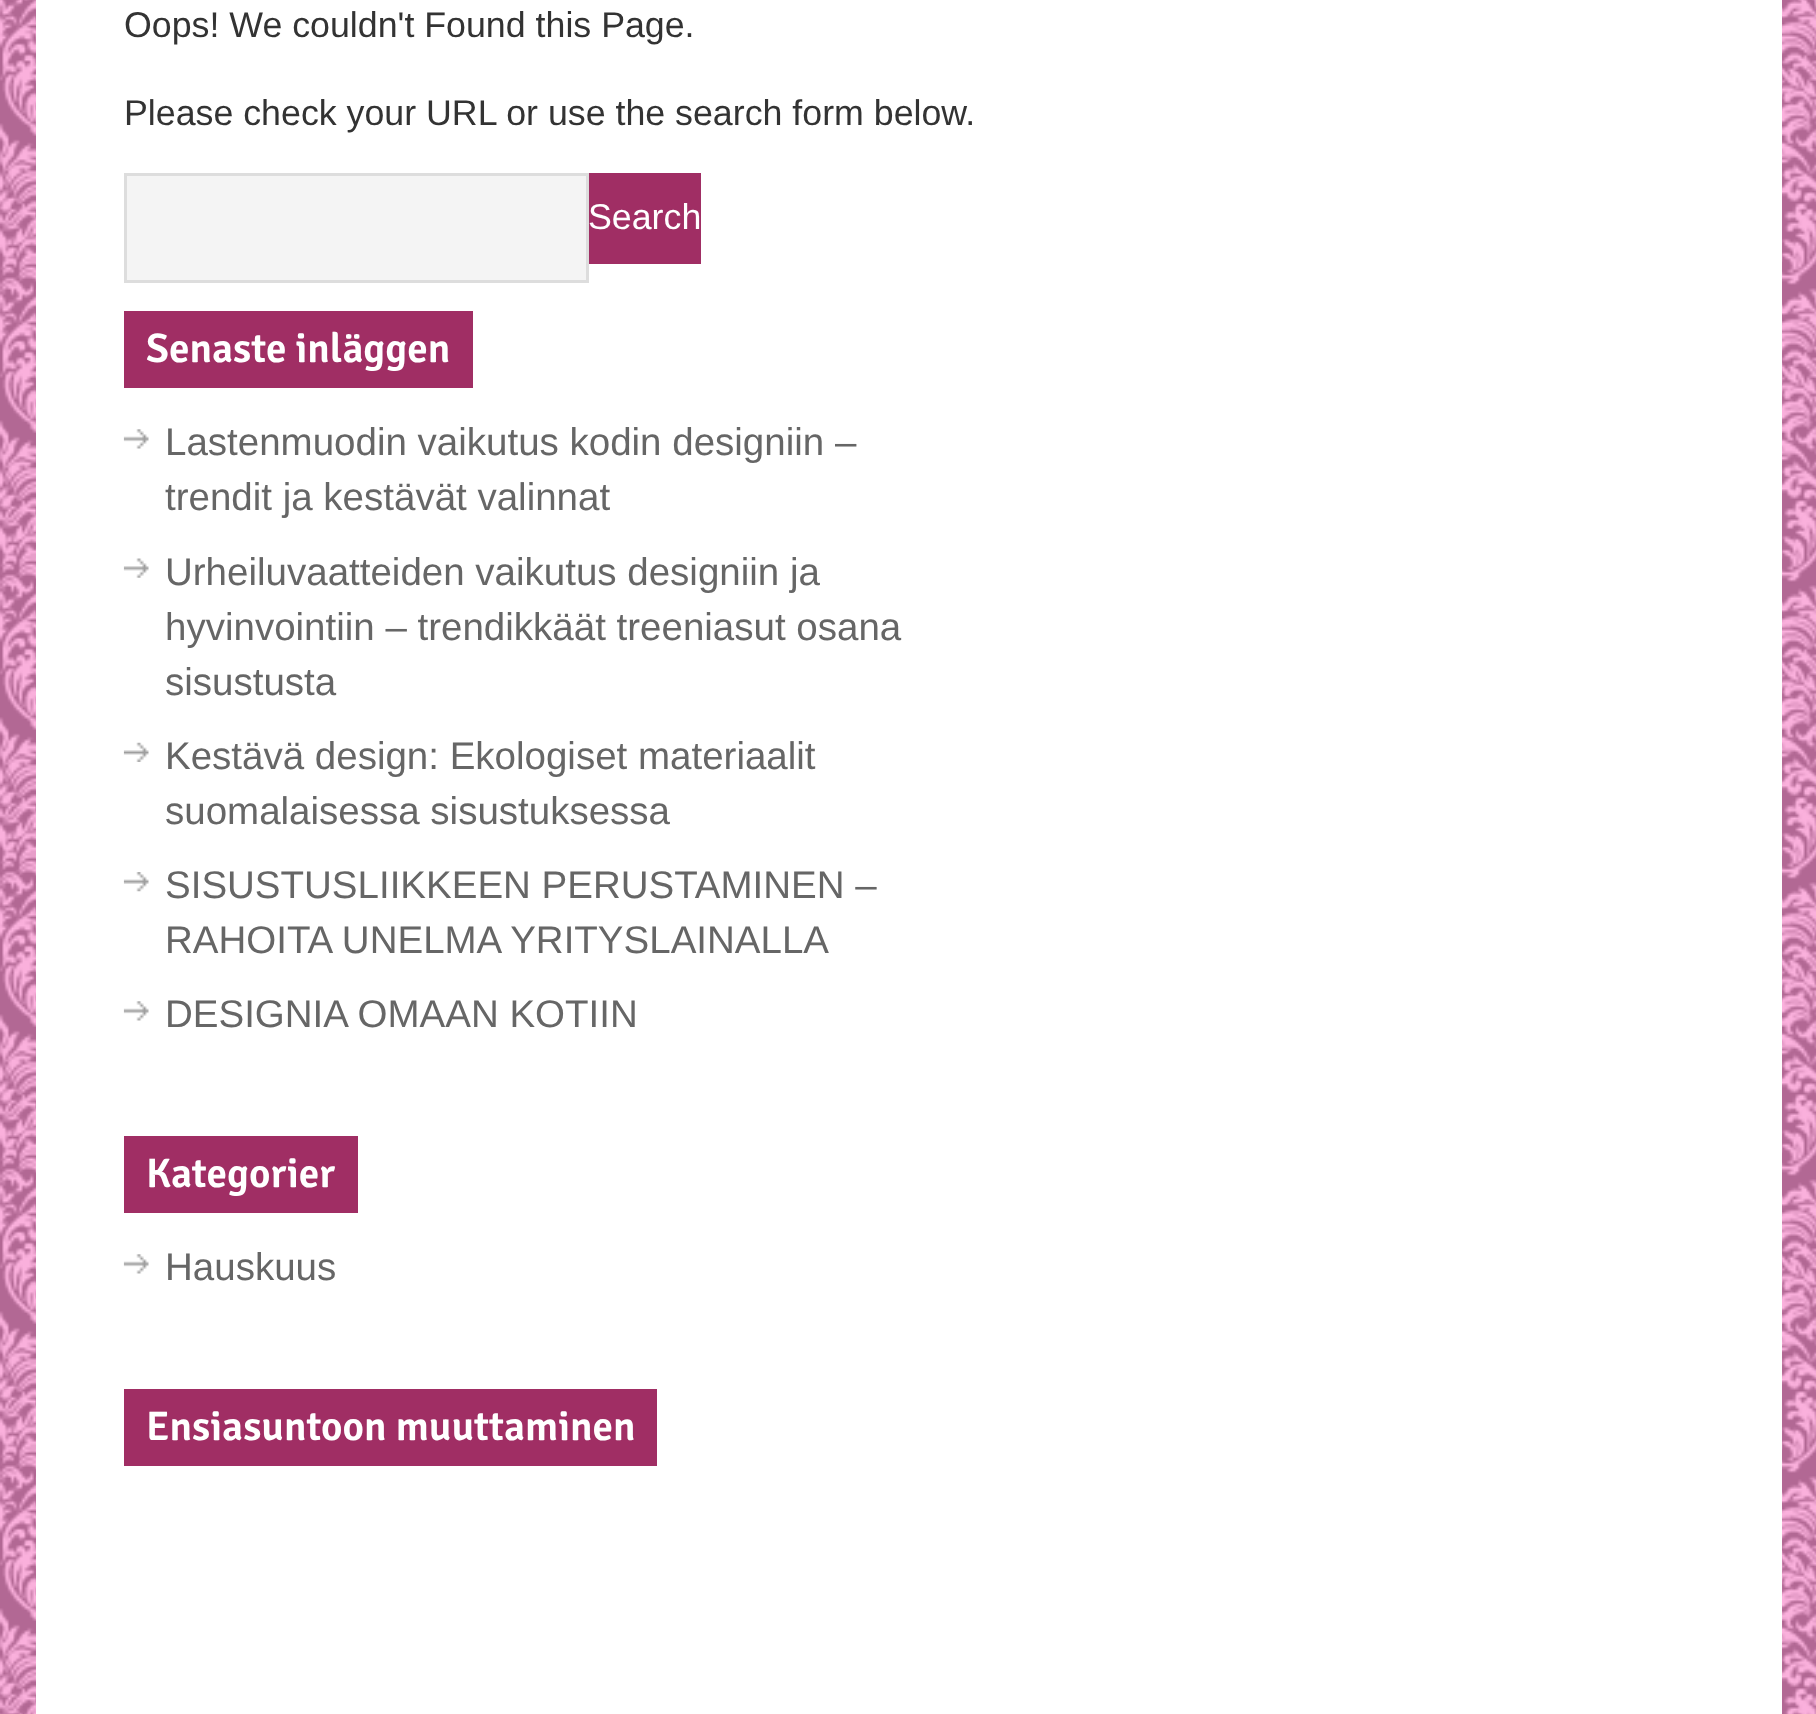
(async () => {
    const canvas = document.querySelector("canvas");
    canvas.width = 1816;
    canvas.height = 1714;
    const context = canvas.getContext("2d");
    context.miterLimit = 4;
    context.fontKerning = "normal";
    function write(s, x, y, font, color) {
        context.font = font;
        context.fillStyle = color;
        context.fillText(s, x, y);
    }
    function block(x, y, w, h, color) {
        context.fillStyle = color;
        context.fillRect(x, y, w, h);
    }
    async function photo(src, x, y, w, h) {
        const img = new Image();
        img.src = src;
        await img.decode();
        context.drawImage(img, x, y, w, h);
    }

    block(0, 0, 1816, 1714, "rgb(255, 255, 255)");
    await photo("media/1.png", 0, 0, 1816, 1714);
    block(36, 0, 1746, 1714, "rgb(255, 255, 255)");
    write("Oops! We couldn't Found this Page.", 124, 37, "35.75px Liberation Sans", "rgb(51, 51, 51)");
    write("Please check your URL or use the search form below.", 124, 125, "35.75px Liberation Sans", "rgb(51, 51, 51)");
    context.fillStyle = "rgb(244, 244, 244)";
    context.beginPath();
    context.rect(125.5, 174.5, 462, 107);
    context.fill();
    context.strokeStyle = "rgb(221, 221, 221)";
    context.lineWidth = 3;
    context.stroke();
    block(589, 173, 112, 91, "rgb(160, 46, 100)");
    write("Search", 588, 229, "35.75px Liberation Sans", "rgb(255, 255, 255)");
    block(124, 311, 349, 77, "rgb(160, 46, 100)");
    write("Senaste inläggen", 146, 362, "600 41.25px Signika", "rgb(255, 255, 255)");
    await photo("media/2.png", 123, 429, 26, 20);
    write("Lastenmuodin vaikutus kodin designiin –", 165, 455, "38.5px Liberation Sans", "rgb(102, 102, 102)");
    write("trendit ja kestävät valinnat", 165, 510, "38.5px Liberation Sans", "rgb(102, 102, 102)");
    await photo("media/3.png", 123, 558, 26, 20);
    write("Urheiluvaatteiden vaikutus designiin ja", 165, 585, "38.5px Liberation Sans", "rgb(102, 102, 102)");
    write("hyvinvointiin – trendikkäät treeniasut osana", 165, 640, "38.5px Liberation Sans", "rgb(102, 102, 102)");
    write("sisustusta", 165, 695, "38.5px Liberation Sans", "rgb(102, 102, 102)");
    await photo("media/4.png", 123, 742, 26, 20);
    write("Kestävä design: Ekologiset materiaalit", 165, 769, "38.5px Liberation Sans", "rgb(102, 102, 102)");
    write("suomalaisessa sisustuksessa", 165, 824, "38.5px Liberation Sans", "rgb(102, 102, 102)");
    await photo("media/5.png", 123, 872, 26, 20);
    write("SISUSTUSLIIKKEEN PERUSTAMINEN –", 165, 898, "38.5px Liberation Sans", "rgb(102, 102, 102)");
    write("RAHOITA UNELMA YRITYSLAINALLA", 165, 953, "38.5px Liberation Sans", "rgb(102, 102, 102)");
    await photo("media/2.png", 123, 1001, 26, 20);
    write("DESIGNIA OMAAN KOTIIN", 165, 1027, "38.5px Liberation Sans", "rgb(102, 102, 102)");
    block(124, 1136, 234, 77, "rgb(160, 46, 100)");
    write("Kategorier", 146, 1187, "600 41.25px Signika", "rgb(255, 255, 255)");
    await photo("media/2.png", 123, 1254, 26, 20);
    write("Hauskuus", 165, 1280, "38.5px Liberation Sans", "rgb(102, 102, 102)");
    block(124, 1389, 533, 77, "rgb(160, 46, 100)");
    write("Ensiasuntoon muuttaminen", 146, 1440, "600 41.25px Signika", "rgb(255, 255, 255)");
})();
